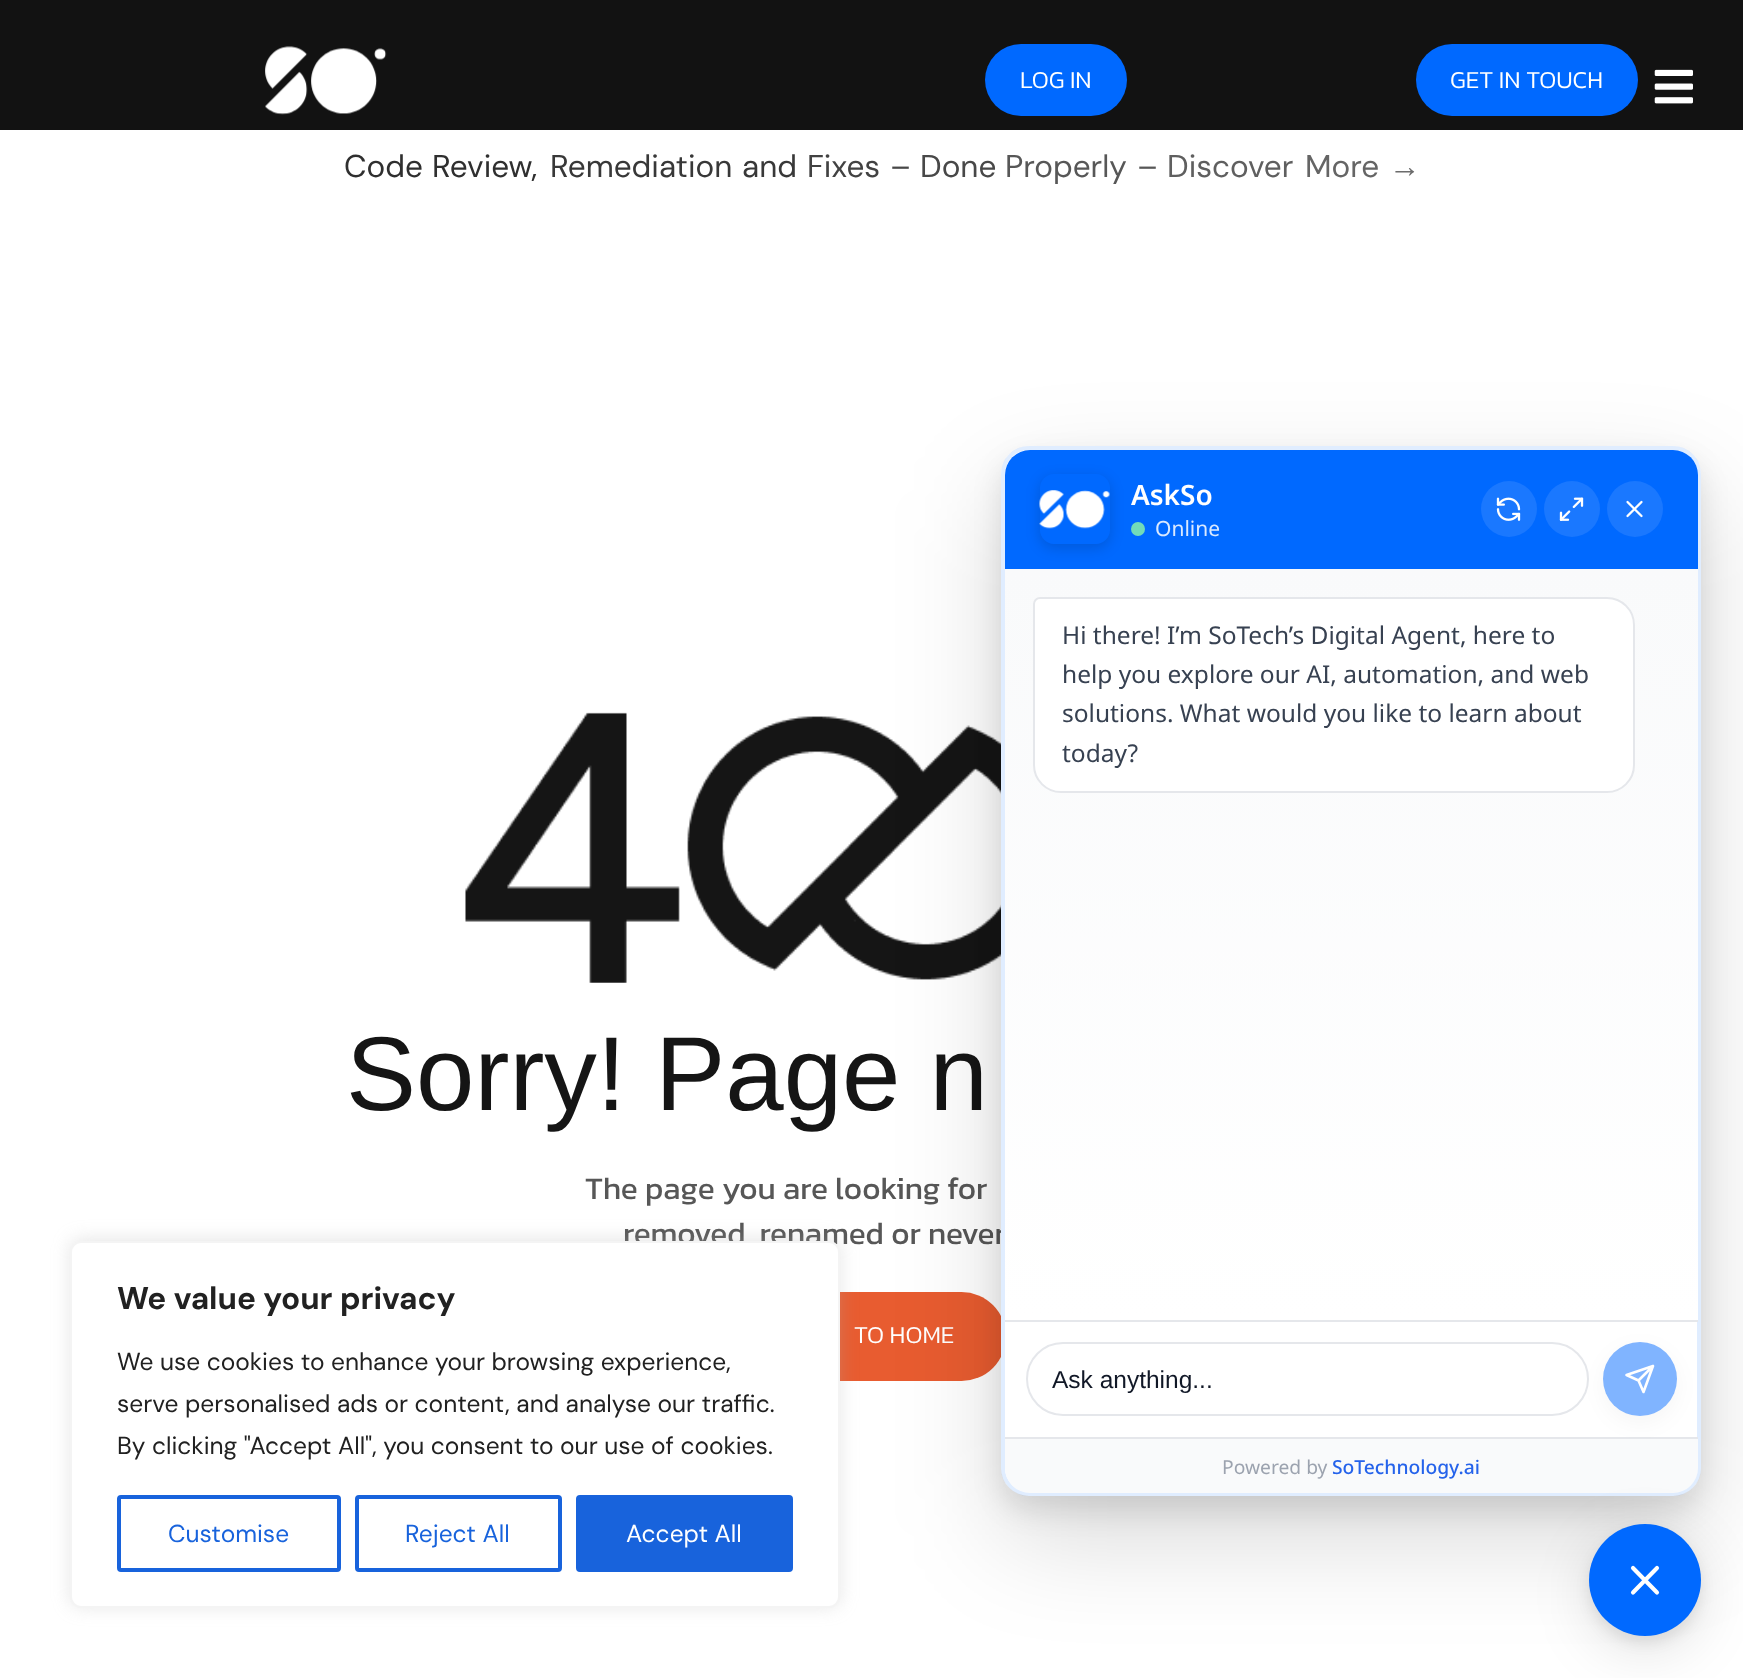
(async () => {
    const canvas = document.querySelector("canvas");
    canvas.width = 1743;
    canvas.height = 1678;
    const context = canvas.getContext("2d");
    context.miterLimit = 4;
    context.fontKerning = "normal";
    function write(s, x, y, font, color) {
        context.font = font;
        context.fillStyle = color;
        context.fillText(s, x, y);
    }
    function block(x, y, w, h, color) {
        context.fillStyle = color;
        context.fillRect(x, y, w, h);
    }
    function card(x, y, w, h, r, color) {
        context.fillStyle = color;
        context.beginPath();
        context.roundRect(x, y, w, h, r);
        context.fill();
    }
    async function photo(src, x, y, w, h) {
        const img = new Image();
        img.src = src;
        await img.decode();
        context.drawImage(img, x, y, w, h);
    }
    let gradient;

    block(0, 0, 1743, 1678, "rgb(255, 255, 255)");
    block(0, 0, 1743, 130, "rgb(18, 18, 18)");
    await photo("media/1.png", 265, 46, 122, 69);
    card(985, 44, 142, 72, 36, "rgb(0, 105, 255)");
    write("LOG IN", 1020, 88, "300 24.5px Kanit", "rgb(255, 255, 255)");
    card(1416, 44, 222, 72, 36, "rgb(0, 105, 255)");
    write("GET IN TOUCH", 1450, 88, "300 24.5px Kanit", "rgb(255, 255, 255)");
    await photo("media/2.png", 1654, 69, 39, 35);
    write("Code", 344, 177, "31.5px DM Sans", "rgb(47, 47, 47)");
    write("Review,", 432, 177, "31.5px DM Sans", "rgb(47, 47, 47)");
    write("Remediation", 550, 177, "31.5px DM Sans", "rgb(56, 56, 56)");
    write("and", 742, 177, "31.5px DM Sans", "rgb(56, 56, 56)");
    write("Fixes", 807, 177, "31.5px DM Sans", "rgb(66, 66, 66)");
    write("–", 890, 177, "31.5px DM Sans", "rgb(72, 72, 72)");
    write("Done", 920, 177, "31.5px DM Sans", "rgb(72, 72, 72)");
    write("Properly", 1005, 177, "31.5px DM Sans", "rgb(87, 87, 87)");
    write("–", 1137, 177, "31.5px DM Sans", "rgb(87, 87, 87)");
    write("Discover", 1167, 177, "31.5px DM Sans", "rgb(95, 95, 95)");
    write("More", 1305, 177, "31.5px DM Sans", "rgb(101, 101, 101)");
    write("→", 1389, 177, "31.5px Liberation Sans", "rgb(108, 108, 108)");
    await photo("media/3.png", 465, 712, 536, 271);
    write("Sorry! Page n", 346, 1110, "105px Liberation Sans", "rgb(21, 21, 21)");
    write("The page you are looking for", 585, 1199, "31.5px Kanit", "rgb(87, 87, 87)");
    write("removed, renamed or never", 623, 1244, "31.5px Kanit", "rgb(87, 87, 87)");
    card(737, 1292, 269, 89, 44.5, "rgb(232, 92, 48)");
    write("TO HOME", 854, 1343, "300 24.5px Kanit", "rgb(255, 255, 255)");
    context.fillStyle = "rgba(172, 171, 171, 0.3)";
    context.filter = "blur(9px)";
    context.beginPath();
    context.roundRect(70, 1239, 770, 368, 11);
    context.fill();
    context.filter = "none";
    context.fillStyle = "rgb(255, 255, 255)";
    context.beginPath();
    context.roundRect(71, 1242, 768, 365, 10);
    context.fill();
    context.strokeStyle = "rgb(244, 244, 244)";
    context.lineWidth = 2;
    context.stroke();
    write("We value your privacy", 117, 1309, "bold 31.5px DM Sans", "rgb(33, 33, 33)");
    write("We use cookies to enhance your browsing experience,", 117, 1370, "24.5px DM Sans", "rgb(33, 33, 33)");
    write("serve personalised ads or content, and analyse our traffic.", 117, 1412, "24.5px DM Sans", "rgb(33, 33, 33)");
    write("By clicking \"Accept All\", you consent to our use of cookies.", 117, 1454, "24.5px DM Sans", "rgb(33, 33, 33)");
    context.beginPath();
    context.roundRect(119, 1497, 220, 73, 2);
    context.strokeStyle = "rgb(24, 99, 220)";
    context.lineWidth = 4;
    context.stroke();
    write("Customise", 168, 1542, "24.5px DM Sans", "rgb(24, 99, 220)");
    context.beginPath();
    context.roundRect(357, 1497, 203, 73, 2);
    context.stroke();
    write("Reject All", 405, 1542, "24.5px DM Sans", "rgb(24, 99, 220)");
    context.beginPath();
    context.roundRect(578, 1497, 213, 73, 2);
    context.fill();
    context.stroke();
    write("Accept All", 626, 1542, "24.5px DM Sans", "rgb(255, 255, 255)");
    context.fillStyle = "rgba(0, 0, 0, 0.1)";
    context.filter = "blur(14px)";
    context.beginPath();
    context.roundRect(1001, 460, 700, 1050, 28);
    context.fill();
    context.filter = "none";
    context.fillStyle = "rgba(0, 0, 0, 0.15)";
    context.filter = "blur(52.5px)";
    context.beginPath();
    context.roundRect(1001, 488, 700, 1050, 28);
    context.fill();
    context.filter = "none";
    card(1001, 446, 700, 1050, 28, "rgb(255, 255, 255)");
    context.beginPath();
    context.roundRect(1003, 448, 696, 1046, 26);
    context.strokeStyle = "rgba(0, 105, 255, 0.12)";
    context.stroke();
    context.fillStyle = "rgb(0, 105, 255)";
    context.beginPath();
    context.roundRect(1005, 450, 693, 119, [25, 25, 0, 0]);
    context.fill();
    context.save();
    context.beginPath();
    context.moveTo(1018, 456);
    context.lineTo(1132, 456);
    context.lineTo(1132, 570);
    context.lineTo(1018, 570);
    context.closePath();
    context.moveTo(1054, 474);
    context.lineTo(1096, 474);
    context.bezierCurveTo(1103.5, 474, 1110, 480.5, 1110, 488);
    context.lineTo(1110, 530);
    context.bezierCurveTo(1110, 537.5, 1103.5, 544, 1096, 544);
    context.lineTo(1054, 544);
    context.bezierCurveTo(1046.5, 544, 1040, 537.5, 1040, 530);
    context.lineTo(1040, 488);
    context.bezierCurveTo(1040, 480.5, 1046.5, 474, 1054, 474);
    context.closePath();
    context.clip("evenodd");
    context.fillStyle = "rgba(0, 0, 0, 0.15)";
    context.filter = "blur(7px)";
    context.beginPath();
    context.roundRect(1040, 478, 70, 70, 14);
    context.fill();
    context.filter = "none";
    context.restore();
    await photo("media/4.png", 1039, 490, 71, 39);
    write("AskSo", 1131, 505, "600 28px Noto Sans", "rgb(255, 255, 255)");
    context.fillStyle = "rgb(114, 219, 184)";
    context.beginPath();
    context.arc(1138, 529, 7, 0, Math.PI * 2);
    context.fill();
    write("Online", 1155, 536, "21px Noto Sans", "rgb(217, 233, 255)");
    context.fillStyle = "rgb(26, 120, 255)";
    context.beginPath();
    context.arc(1509, 509, 28, 0, Math.PI * 2);
    context.fill();
    await photo("media/5.png", 1496, 497, 25, 24);
    context.beginPath();
    context.arc(1572, 509, 28, 0, Math.PI * 2);
    context.fill();
    await photo("media/6.png", 1559, 497, 25, 24);
    context.beginPath();
    context.arc(1635, 509, 28, 0, Math.PI * 2);
    context.fill();
    context.beginPath();
    context.moveTo(1641.5, 502);
    context.lineTo(1627.5, 516);
    context.moveTo(1627.5, 502);
    context.lineTo(1641.5, 516);
    context.strokeStyle = "rgb(255, 255, 255)";
    context.lineWidth = 2.3;
    context.lineCap = "round";
    context.lineJoin = "round";
    context.stroke();
    gradient = context.createLinearGradient(1351, 569, 1351, 1320);
    gradient.addColorStop(0, "rgb(249, 250, 251)");
    gradient.addColorStop(1, "rgb(255, 255, 255)");
    context.fillStyle = gradient;
    context.fillRect(1005, 569, 693, 751);
    context.fillStyle = "rgb(255, 255, 255)";
    context.beginPath();
    context.roundRect(1034, 598, 600, 194, [6, 27, 27, 27]);
    context.fill();
    context.strokeStyle = "rgb(229, 231, 235)";
    context.lineWidth = 2;
    context.lineJoin = "miter";
    context.stroke();
    write("Hi there! I’m SoTech’s Digital Agent, here to", 1062, 644, "24.5px Noto Sans", "rgb(55, 65, 81)");
    write("help you explore our AI, automation, and web", 1062, 683, "24.5px Noto Sans", "rgb(55, 65, 81)");
    write("solutions. What would you like to learn about", 1062, 722, "24.5px Noto Sans", "rgb(55, 65, 81)");
    write("today?", 1062, 762, "24.5px Noto Sans", "rgb(55, 65, 81)");
    block(1005, 1320, 693, 2, "rgb(229, 231, 235)");
    context.beginPath();
    context.roundRect(1027, 1343, 561, 72, 36);
    context.stroke();
    write("Ask anything...", 1052, 1388, "24.5px Liberation Sans", "rgb(17, 24, 39)");
    context.fillStyle = "rgb(249, 250, 251)";
    context.beginPath();
    context.roundRect(1005, 1437, 693, 56, [0, 0, 25, 25]);
    context.fill();
    block(1005, 1437, 693, 2, "rgb(229, 231, 235)");
    context.fillStyle = "rgba(0, 0, 0, 0.04)";
    context.filter = "blur(10.5px)";
    context.beginPath();
    context.roundRect(1603, 1349, 74, 74, 37);
    context.fill();
    context.filter = "none";
    context.fillStyle = "rgb(128, 180, 255)";
    context.beginPath();
    context.arc(1640, 1379, 37, 0, Math.PI * 2);
    context.fill();
    context.beginPath();
    context.moveTo(1653, 1366);
    context.lineTo(1643.5, 1392);
    context.lineTo(1638.5, 1380.5);
    context.lineTo(1626.5, 1375);
    context.closePath();
    context.moveTo(1653, 1366);
    context.lineTo(1638.5, 1380.5);
    context.strokeStyle = "rgb(255, 255, 255)";
    context.lineWidth = 2.6;
    context.lineJoin = "round";
    context.stroke();
    write("Powered by", 1222, 1474, "19.25px Noto Sans", "rgb(156, 163, 175)");
    write("SoTechnology.ai", 1332, 1474, "500 19.25px Noto Sans", "rgb(37, 99, 235)");
    context.fillStyle = "rgba(0, 0, 0, 0.08)";
    context.filter = "blur(7px)";
    context.beginPath();
    context.roundRect(1589, 1531, 112, 112, 56);
    context.fill();
    context.filter = "none";
    context.fillStyle = "rgba(0, 0, 0, 0.12)";
    context.filter = "blur(28px)";
    context.beginPath();
    context.roundRect(1589, 1538, 112, 112, 56);
    context.fill();
    context.filter = "none";
    context.fillStyle = "rgb(0, 105, 255)";
    context.beginPath();
    context.arc(1645, 1580, 56, 0, Math.PI * 2);
    context.fill();
    context.beginPath();
    context.moveTo(1657, 1568);
    context.lineTo(1633, 1592.5);
    context.moveTo(1633, 1568);
    context.lineTo(1657, 1592.5);
    context.lineWidth = 4.1;
    context.stroke();
})();
